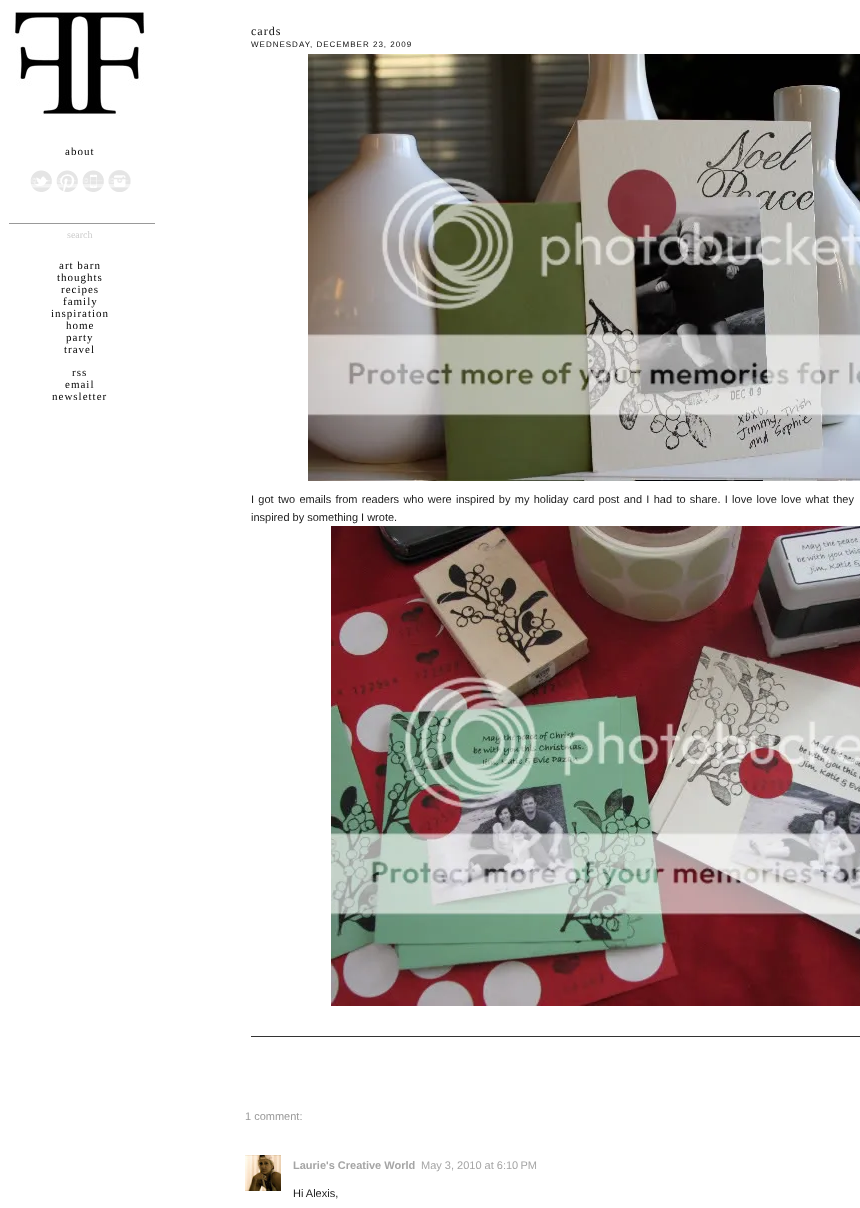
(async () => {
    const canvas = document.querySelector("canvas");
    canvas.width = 860;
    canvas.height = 1208;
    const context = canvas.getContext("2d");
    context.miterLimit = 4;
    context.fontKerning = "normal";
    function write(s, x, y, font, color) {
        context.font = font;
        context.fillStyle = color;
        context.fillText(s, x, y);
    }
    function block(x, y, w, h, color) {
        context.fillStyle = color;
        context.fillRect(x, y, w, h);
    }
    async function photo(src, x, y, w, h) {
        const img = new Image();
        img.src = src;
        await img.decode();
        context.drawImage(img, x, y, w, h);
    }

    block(0, 0, 860, 1208, "rgb(255, 255, 255)");
    await photo("media/1.png", 11, 12, 134, 104);
    context.letterSpacing = "1px";
    write("about", 65, 155, "11px Liberation Serif", "rgb(0, 0, 0)");
    await photo("media/2.png", 30, 170, 22, 22);
    await photo("media/3.png", 56, 170, 22, 22);
    await photo("media/4.png", 82, 170, 22, 22);
    await photo("media/5.png", 108, 170, 23, 22);
    block(8, 223, 147, 1, "rgb(153, 153, 153)");
    block(8, 223, 1, 1, "rgb(255, 255, 255)");
    context.letterSpacing = "0px";
    write("search", 67, 238, "10px Liberation Serif", "rgb(204, 204, 204)");
    context.letterSpacing = "1px";
    write("art barn", 59, 269, "11px Liberation Serif", "rgb(0, 0, 0)");
    write("thoughts", 57, 281, "11px Liberation Serif", "rgb(0, 0, 0)");
    write("recipes", 61, 293, "11px Liberation Serif", "rgb(0, 0, 0)");
    write("family", 63, 305, "11px Liberation Serif", "rgb(0, 0, 0)");
    write("inspiration", 51, 317, "11px Liberation Serif", "rgb(0, 0, 0)");
    write("home", 66, 329, "11px Liberation Serif", "rgb(0, 0, 0)");
    write("party", 66, 341, "11px Liberation Serif", "rgb(0, 0, 0)");
    write("travel", 64, 353, "11px Liberation Serif", "rgb(0, 0, 0)");
    write("rss", 72, 376, "11px Liberation Serif", "rgb(0, 0, 0)");
    write("email", 65, 388, "11px Liberation Serif", "rgb(0, 0, 0)");
    write("newsletter", 52, 400, "11px Liberation Serif", "rgb(0, 0, 0)");
    write("cards", 251, 35, "12px Liberation Serif", "rgb(12, 12, 12)");
    write("WEDNESDAY, DECEMBER 23, 2009", 251, 47, "8px Liberation Sans", "rgb(12, 12, 12)");
    await photo("media/6.png", 308, 54, 552, 427);
    context.letterSpacing = "0px";
    context.wordSpacing = "1.25px";
    write("I got two emails from readers who were inspired by my holiday card post and I had to share. I love love love what they", 251, 503, "11px Liberation Sans", "rgb(27, 27, 27)");
    context.wordSpacing = "0px";
    write("inspired by something I wrote.", 251, 521, "11px Liberation Sans", "rgb(27, 27, 27)");
    await photo("media/7.png", 331, 526, 529, 480);
    block(251, 1036, 609, 1, "rgb(51, 51, 51)");
    write("1 comment:", 245, 1120, "11px Liberation Sans", "rgb(153, 153, 153)");
    await photo("media/8.png", 245, 1155, 36, 36);
    write("Laurie's Creative World", 293, 1169, "bold 11px Liberation Sans", "rgb(165, 165, 165)");
    write("May 3, 2010 at 6:10 PM", 421, 1169, "11px Liberation Sans", "rgb(165, 165, 165)");
    write("Hi Alexis,", 293, 1197, "11px Liberation Sans", "rgb(27, 27, 27)");
})();
